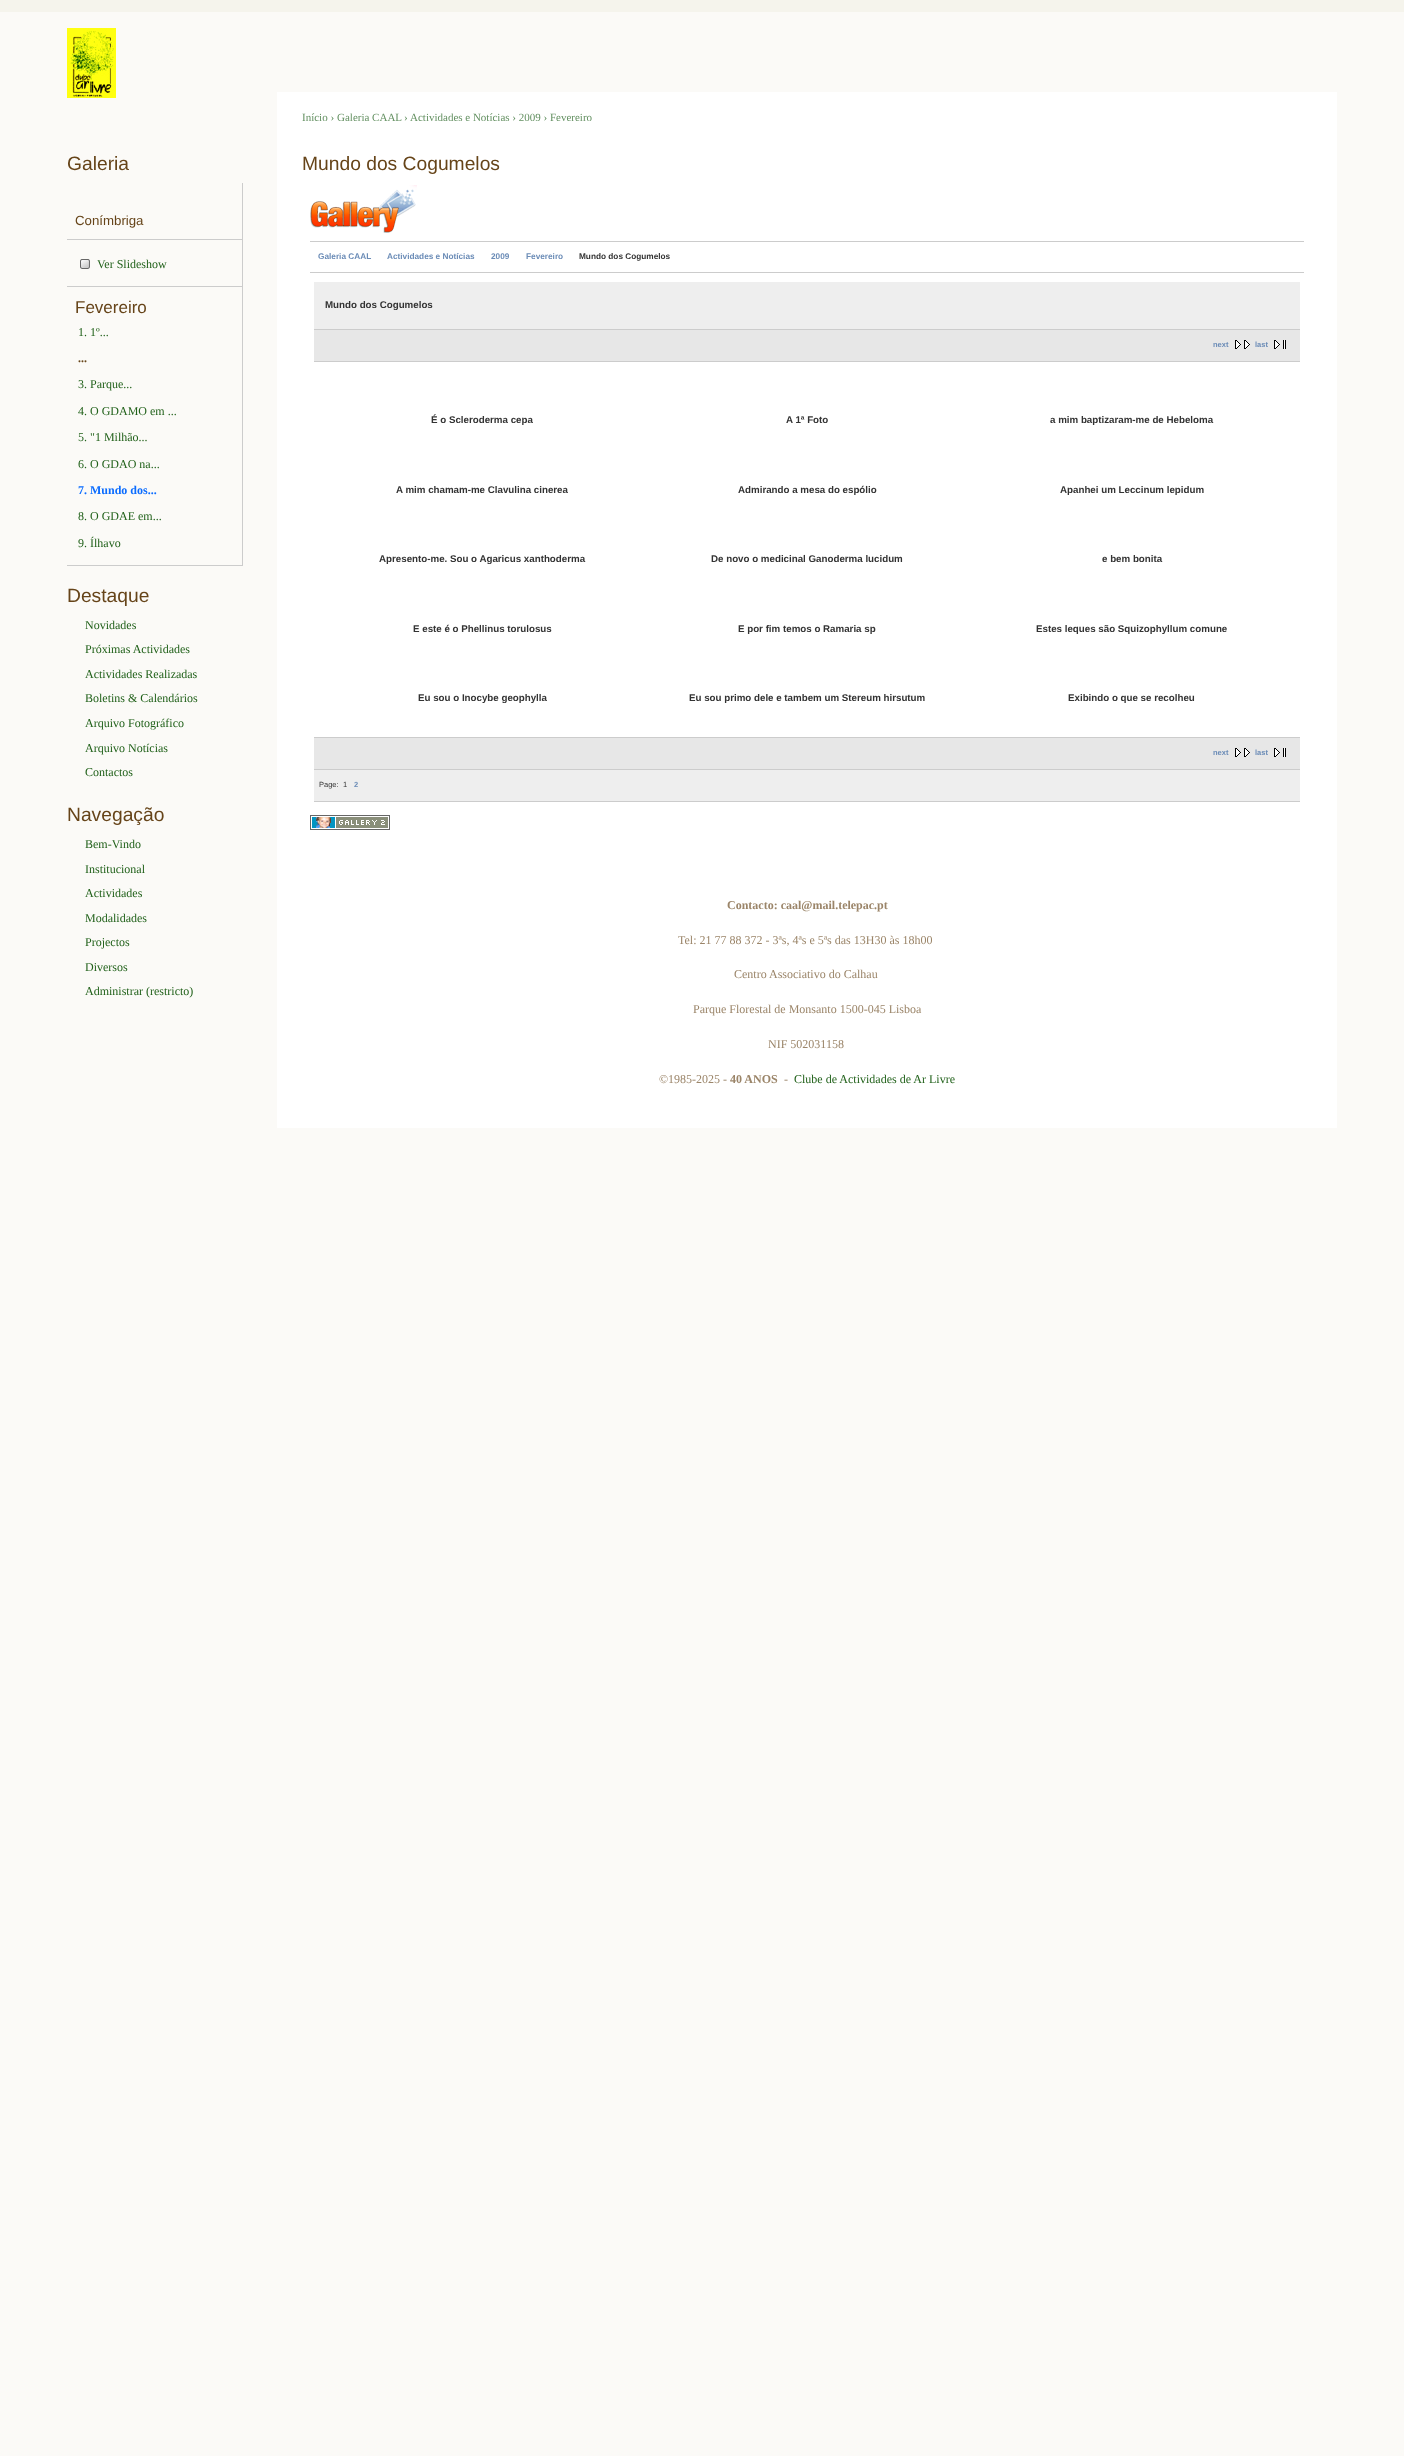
(async () => {
    const canvas = document.querySelector("canvas");
    canvas.width = 1404;
    canvas.height = 2456;
    const context = canvas.getContext("2d");
    context.miterLimit = 4;
    context.fontKerning = "normal";
    function write(s, x, y, font, color) {
        context.font = font;
        context.fillStyle = color;
        context.fillText(s, x, y);
    }
    function block(x, y, w, h, color) {
        context.fillStyle = color;
        context.fillRect(x, y, w, h);
    }
    async function photo(src, x, y, w, h) {
        const img = new Image();
        img.src = src;
        await img.decode();
        context.drawImage(img, x, y, w, h);
    }

    block(0, 0, 1404, 2456, "rgb(251, 250, 247)");
    block(0, 0, 1404, 12, "rgb(245, 244, 236)");
    await photo("media/1.png", 67, 28, 49, 70);
    write("Galeria", 67, 170, "19.25px Liberation Sans", "rgb(102, 68, 25)");
    block(242, 183, 1, 383, "rgb(204, 204, 204)");
    block(67, 239, 175, 1, "rgb(204, 204, 204)");
    write("Conímbriga", 75, 225, "13.25px Liberation Sans", "rgb(102, 68, 25)");
    block(67, 286, 175, 1, "rgb(204, 204, 204)");
    await photo("media/2.png", 80, 259, 10, 10);
    write("Ver Slideshow", 97, 268, "12px Liberation Serif", "rgb(33, 97, 26)");
    block(67, 565, 175, 1, "rgb(204, 204, 204)");
    write("Fevereiro", 75, 313, "17px Liberation Sans", "rgb(102, 68, 25)");
    write("1. 1º...", 78, 336, "12px Liberation Serif", "rgb(33, 97, 26)");
    write("...", 78, 362, "bold 12px Liberation Serif", "rgb(102, 68, 25)");
    write("3. Parque...", 78, 388, "12px Liberation Serif", "rgb(33, 97, 26)");
    write("4. O GDAMO em ...", 78, 415, "12px Liberation Serif", "rgb(33, 97, 26)");
    write("5. \"1 Milhão...", 78, 441, "12px Liberation Serif", "rgb(33, 97, 26)");
    write("6. O GDAO na...", 78, 468, "12px Liberation Serif", "rgb(33, 97, 26)");
    write("7. Mundo dos...", 78, 494, "bold 12px Liberation Serif", "rgb(11, 108, 255)");
    write("8. O GDAE em...", 78, 520, "12px Liberation Serif", "rgb(33, 97, 26)");
    write("9. Ílhavo", 78, 547, "12px Liberation Serif", "rgb(33, 97, 26)");
    write("Destaque", 67, 602, "19.25px Liberation Sans", "rgb(102, 68, 25)");
    write("Novidades", 85, 629, "12px Liberation Serif", "rgb(33, 97, 26)");
    write("Próximas Actividades", 85, 653, "12px Liberation Serif", "rgb(33, 97, 26)");
    write("Actividades Realizadas", 85, 678, "12px Liberation Serif", "rgb(33, 97, 26)");
    write("Boletins & Calendários", 85, 702, "12px Liberation Serif", "rgb(33, 97, 26)");
    write("Arquivo Fotográfico", 85, 727, "12px Liberation Serif", "rgb(33, 97, 26)");
    write("Arquivo Notícias", 85, 752, "12px Liberation Serif", "rgb(33, 97, 26)");
    write("Contactos", 85, 776, "12px Liberation Serif", "rgb(33, 97, 26)");
    write("Navegação", 67, 821, "19.25px Liberation Sans", "rgb(102, 68, 25)");
    write("Bem-Vindo", 85, 848, "12px Liberation Serif", "rgb(33, 97, 26)");
    write("Institucional", 85, 873, "12px Liberation Serif", "rgb(33, 97, 26)");
    write("Actividades", 85, 897, "12px Liberation Serif", "rgb(33, 97, 26)");
    write("Modalidades", 85, 922, "12px Liberation Serif", "rgb(33, 97, 26)");
    write("Projectos", 85, 946, "12px Liberation Serif", "rgb(33, 97, 26)");
    write("Diversos", 85, 971, "12px Liberation Serif", "rgb(33, 97, 26)");
    write("Administrar (restricto)", 85, 995, "12px Liberation Serif", "rgb(33, 97, 26)");
    block(277, 92, 1060, 1036, "rgb(255, 255, 255)");
    write("Início ›", 302, 121, "11px Liberation Serif", "rgb(99, 144, 97)");
    write("Galeria CAAL", 337, 121, "11px Liberation Serif", "rgb(99, 144, 97)");
    write("›", 404, 121, "11px Liberation Serif", "rgb(99, 144, 97)");
    write("Actividades e Notícias › 2009 › Fevereiro", 410, 121, "11px Liberation Serif", "rgb(99, 144, 97)");
    write("Mundo dos Cogumelos", 302, 170, "19.25px Liberation Sans", "rgb(102, 68, 25)");
    await photo("media/3.png", 310, 185, 107, 48);
    block(310, 241, 994, 1, "rgb(204, 204, 204)");
    block(310, 272, 994, 1, "rgb(204, 204, 204)");
    write("Galeria CAAL", 318, 259, "bold 8.25px Liberation Sans", "rgb(107, 140, 183)");
    write("Actividades e Notícias", 387, 259, "bold 8.25px Liberation Sans", "rgb(107, 140, 183)");
    write("2009", 491, 259, "bold 8.25px Liberation Sans", "rgb(107, 140, 183)");
    write("Fevereiro", 526, 259, "bold 8.25px Liberation Sans", "rgb(107, 140, 183)");
    write("Mundo dos Cogumelos", 579, 259, "bold 8.25px Liberation Sans", "rgb(51, 51, 51)");
    block(314, 282, 986, 47, "rgb(238, 238, 238)");
    block(314, 329, 986, 1, "rgb(204, 204, 204)");
    write("Mundo dos Cogumelos", 325, 308, "bold 9.75px Liberation Sans", "rgb(51, 51, 51)");
    block(314, 330, 986, 31, "rgb(231, 231, 231)");
    block(314, 361, 986, 1, "rgb(204, 204, 204)");
    write("next", 1213, 347, "bold 7.5px Liberation Sans", "rgb(107, 140, 183)");
    await photo("media/4.png", 1235, 340, 15, 9);
    write("last", 1255, 347, "bold 7.5px Liberation Sans", "rgb(107, 140, 183)");
    await photo("media/5.png", 1274, 340, 12, 9);
    block(314, 737, 986, 1, "rgb(204, 204, 204)");
    write("É o Scleroderma cepa", 431, 423, "bold 9.75px Liberation Sans", "rgb(51, 51, 51)");
    write("A 1ª Foto", 786, 423, "bold 9.75px Liberation Sans", "rgb(51, 51, 51)");
    write("a mim baptizaram-me de Hebeloma", 1050, 423, "bold 9.75px Liberation Sans", "rgb(51, 51, 51)");
    write("A mim chamam-me Clavulina cinerea", 396, 493, "bold 9.75px Liberation Sans", "rgb(51, 51, 51)");
    write("Admirando a mesa do espólio", 738, 493, "bold 9.75px Liberation Sans", "rgb(51, 51, 51)");
    write("Apanhei um Leccinum lepidum", 1060, 493, "bold 9.75px Liberation Sans", "rgb(51, 51, 51)");
    write("Apresento-me. Sou o Agaricus xanthoderma", 379, 562, "bold 9.75px Liberation Sans", "rgb(51, 51, 51)");
    write("De novo o medicinal Ganoderma lucidum", 711, 562, "bold 9.75px Liberation Sans", "rgb(51, 51, 51)");
    write("e bem bonita", 1102, 562, "bold 9.75px Liberation Sans", "rgb(51, 51, 51)");
    write("E este é o Phellinus torulosus", 413, 632, "bold 9.75px Liberation Sans", "rgb(51, 51, 51)");
    write("E por fim temos o Ramaria sp", 738, 632, "bold 9.75px Liberation Sans", "rgb(51, 51, 51)");
    write("Estes leques são Squizophyllum comune", 1036, 632, "bold 9.75px Liberation Sans", "rgb(51, 51, 51)");
    write("Eu sou o Inocybe geophylla", 418, 701, "bold 9.75px Liberation Sans", "rgb(51, 51, 51)");
    write("Eu sou primo dele e tambem um Stereum hirsutum", 689, 701, "bold 9.75px Liberation Sans", "rgb(51, 51, 51)");
    write("Exibindo o que se recolheu", 1068, 701, "bold 9.75px Liberation Sans", "rgb(51, 51, 51)");
    block(314, 738, 986, 31, "rgb(231, 231, 231)");
    block(314, 769, 986, 1, "rgb(204, 204, 204)");
    write("next", 1213, 755, "bold 7.5px Liberation Sans", "rgb(107, 140, 183)");
    await photo("media/4.png", 1235, 748, 15, 9);
    write("last", 1255, 755, "bold 7.5px Liberation Sans", "rgb(107, 140, 183)");
    await photo("media/5.png", 1274, 748, 12, 9);
    block(314, 770, 986, 31, "rgb(238, 238, 238)");
    block(314, 801, 986, 1, "rgb(204, 204, 204)");
    write("Page:", 319, 787, "7.5px Liberation Sans", "rgb(51, 51, 51)");
    write("1", 343, 787, "7.5px Liberation Sans", "rgb(51, 51, 51)");
    write("2", 354, 787, "bold 7.5px Liberation Sans", "rgb(107, 140, 183)");
    await photo("media/6.png", 310, 815, 80, 15);
    write("Contacto: caal@mail.telepac.pt", 727, 909, "bold 12px Liberation Serif", "rgb(155, 133, 105)");
    write("Tel: 21 77 88 372 - 3ªs, 4ªs e 5ªs das 13H30 às 18h00", 678, 944, "12px Liberation Serif", "rgb(155, 133, 105)");
    write("Centro Associativo do Calhau", 734, 978, "12px Liberation Serif", "rgb(155, 133, 105)");
    write("Parque Florestal de Monsanto 1500-045 Lisboa", 693, 1013, "12px Liberation Serif", "rgb(155, 133, 105)");
    write("NIF 502031158", 768, 1048, "12px Liberation Serif", "rgb(155, 133, 105)");
    write("©1985-2025 -", 659, 1083, "12px Liberation Serif", "rgb(155, 133, 105)");
    write("40 ANOS", 730, 1083, "bold 12px Liberation Serif", "rgb(155, 133, 105)");
    write("-", 784, 1083, "12px Liberation Serif", "rgb(155, 133, 105)");
    write("Clube de Actividades de Ar Livre", 794, 1083, "12px Liberation Serif", "rgb(33, 97, 26)");
})();
